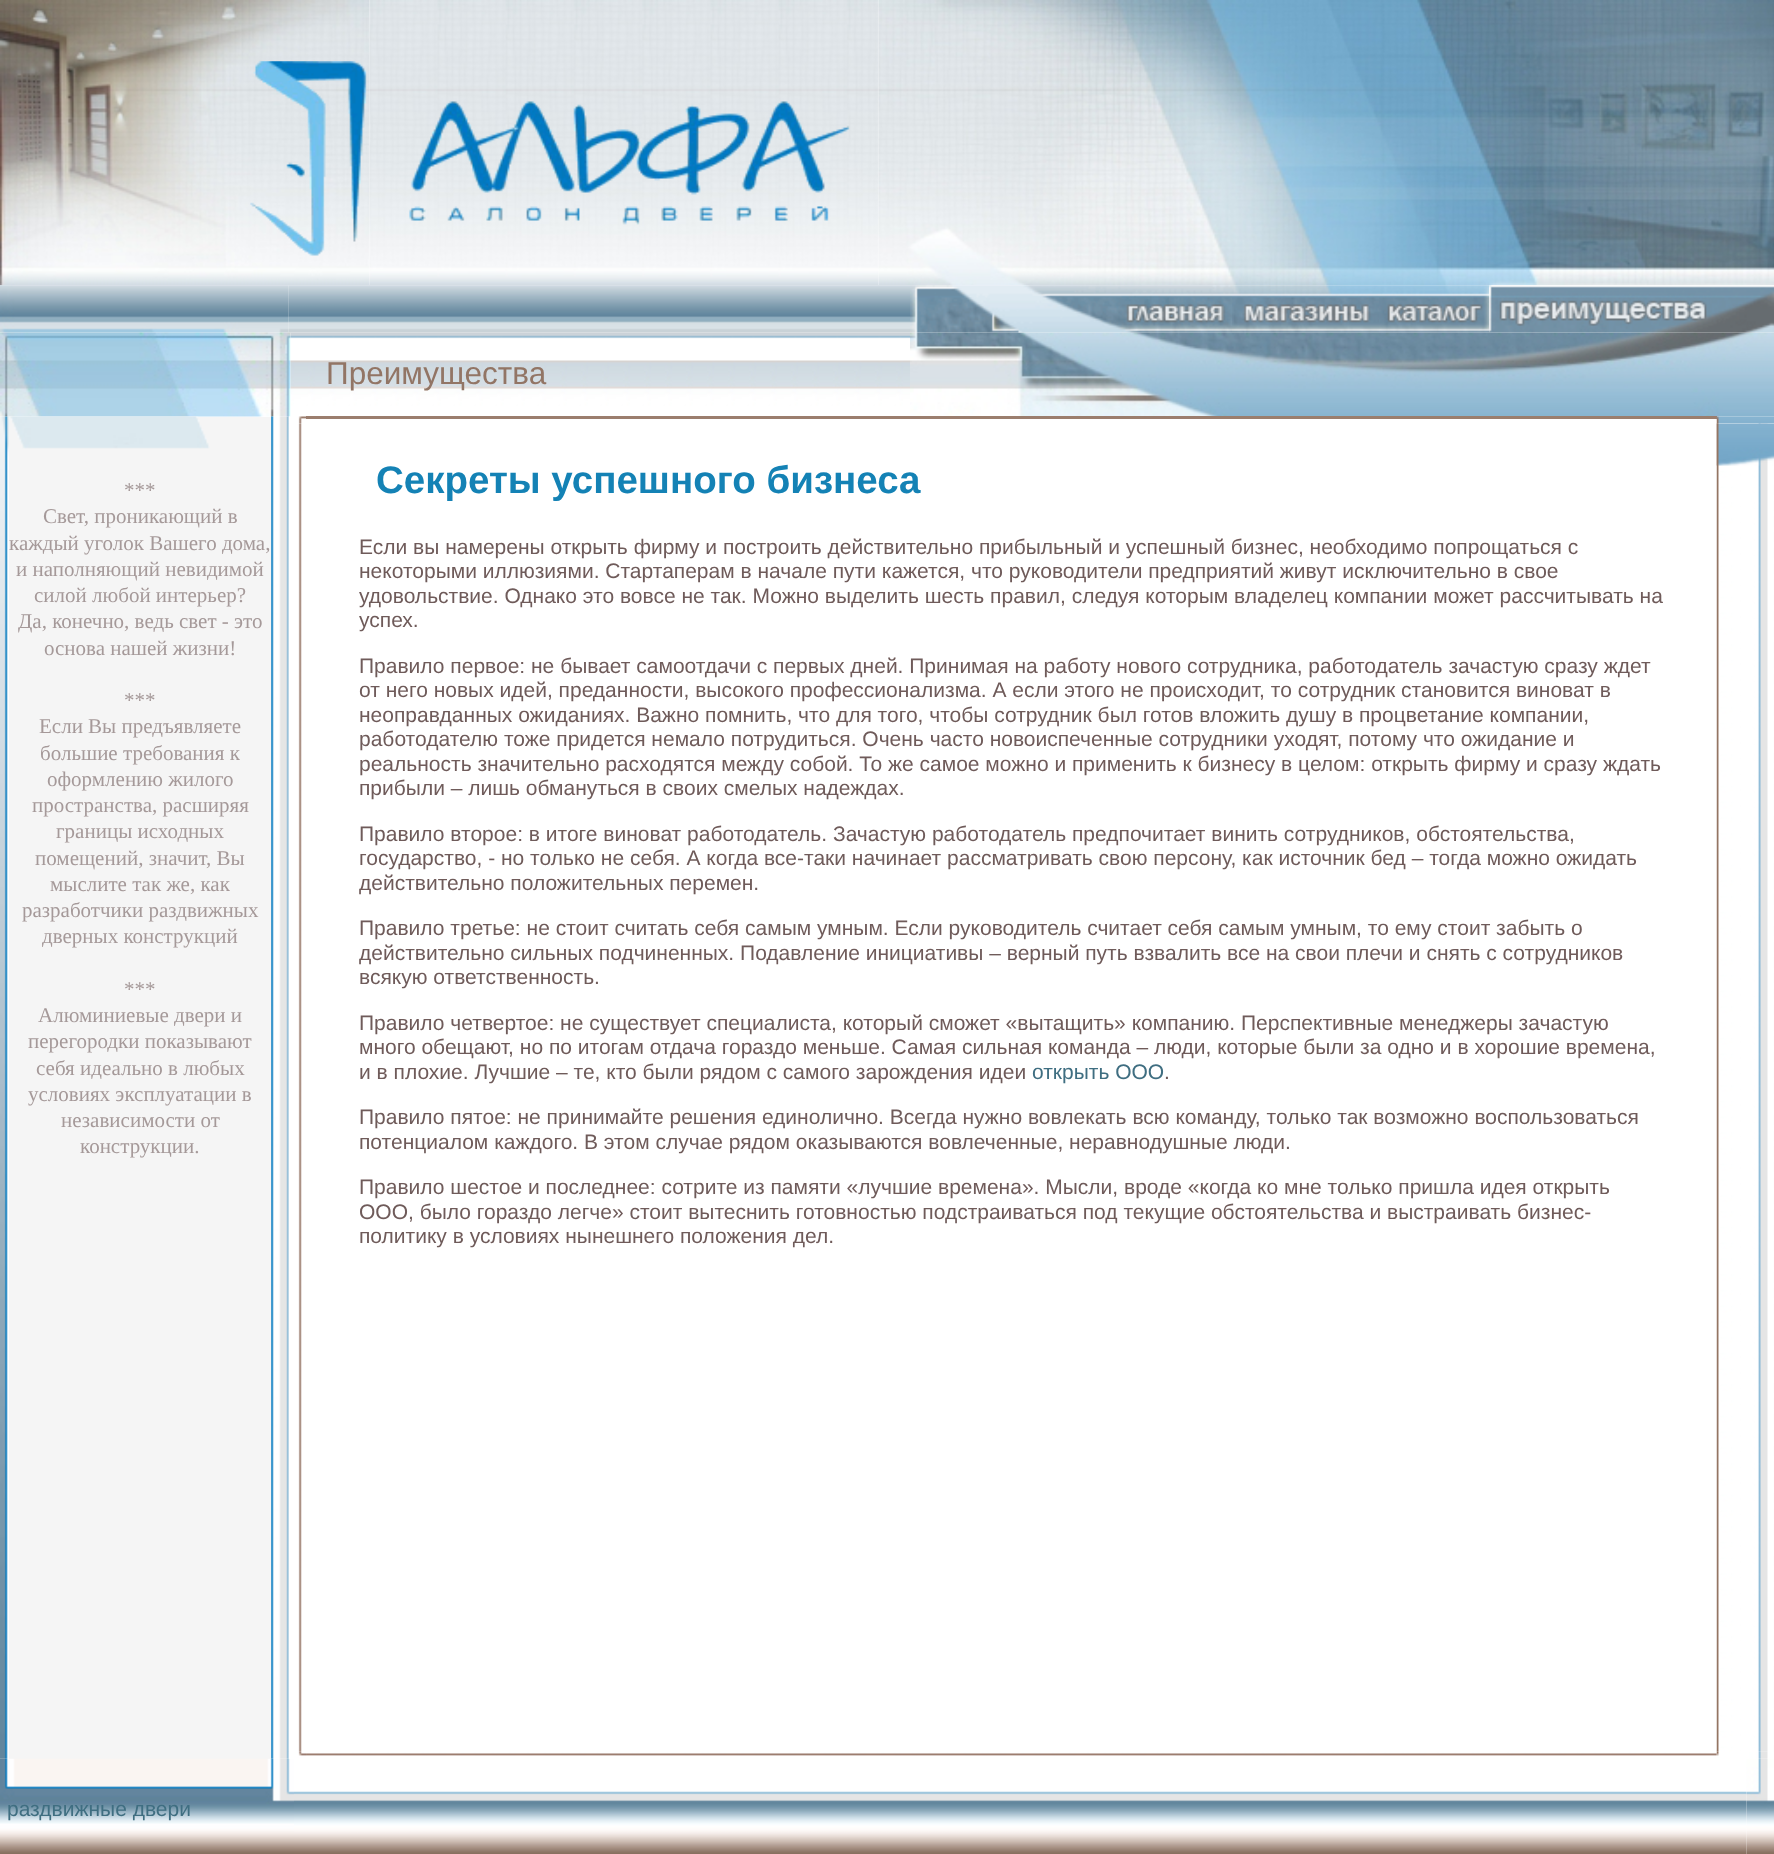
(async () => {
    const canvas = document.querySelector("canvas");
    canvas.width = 1774;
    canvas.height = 1854;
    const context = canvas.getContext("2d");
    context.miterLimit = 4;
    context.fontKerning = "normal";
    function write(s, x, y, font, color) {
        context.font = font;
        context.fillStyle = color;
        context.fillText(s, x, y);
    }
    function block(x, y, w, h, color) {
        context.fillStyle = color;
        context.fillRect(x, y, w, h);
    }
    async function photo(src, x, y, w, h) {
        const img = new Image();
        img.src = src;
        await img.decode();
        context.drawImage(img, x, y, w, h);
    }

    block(0, 0, 1774, 1854, "rgb(255, 255, 255)");
    await photo("media/2.png", 0, 0, 370, 286);
    await photo("media/3.png", 369, 0, 510, 286);
    await photo("media/1.png", 250, 61, 600, 195);
    await photo("media/4.png", 878, 0, 896, 286);
    await photo("media/5.png", 0, 285, 289, 48);
    await photo("media/6.png", 288, 285, 622, 48);
    await photo("media/13.png", 910, 332, 864, 85);
    await photo("media/7.png", 910, 285, 322, 48);
    await photo("media/8.png", 1232, 285, 147, 48);
    await photo("media/9.png", 1379, 285, 111, 48);
    await photo("media/10.png", 1489, 285, 285, 48);
    await photo("media/11.png", 0, 332, 291, 85);
    await photo("media/12.png", 290, 332, 620, 84);
    write("Преимущества", 326, 384, "31.5px Liberation Sans", "rgb(146, 117, 101)");
    block(9, 417, 262, 1342, "rgb(245, 245, 245)");
    await photo("media/16.png", 271, 416, 18, 1343);
    await photo("media/26.png", 0, 1758, 294, 96);
    await photo("media/14.png", 0, 416, 9, 1343);
    await photo("media/15.png", 10, 416, 200, 33);
    write("***", 124, 497, "21px Liberation Serif", "rgb(165, 153, 153)");
    write("Свет, проникающий в", 43, 523, "21px Liberation Serif", "rgb(165, 153, 153)");
    write("каждый уголок Вашего дома,", 9, 550, "21px Liberation Serif", "rgb(165, 153, 153)");
    write("и наполняющий невидимой", 16, 576, "21px Liberation Serif", "rgb(165, 153, 153)");
    write("силой любой интерьер?", 34, 602, "21px Liberation Serif", "rgb(165, 153, 153)");
    write("Да, конечно, ведь свет - это", 18, 628, "21px Liberation Serif", "rgb(165, 153, 153)");
    write("основа нашей жизни!", 44, 655, "21px Liberation Serif", "rgb(165, 153, 153)");
    write("***", 124, 707, "21px Liberation Serif", "rgb(165, 153, 153)");
    write("Если Вы предъявляете", 39, 733, "21px Liberation Serif", "rgb(165, 153, 153)");
    write("большие требования к", 40, 760, "21px Liberation Serif", "rgb(165, 153, 153)");
    write("оформлению жилого", 47, 786, "21px Liberation Serif", "rgb(165, 153, 153)");
    write("пространства, расширяя", 32, 812, "21px Liberation Serif", "rgb(165, 153, 153)");
    write("границы исходных", 56, 838, "21px Liberation Serif", "rgb(165, 153, 153)");
    write("помещений, значит, Вы", 35, 865, "21px Liberation Serif", "rgb(165, 153, 153)");
    write("мыслите так же, как", 50, 891, "21px Liberation Serif", "rgb(165, 153, 153)");
    write("разработчики раздвижных", 22, 917, "21px Liberation Serif", "rgb(165, 153, 153)");
    write("дверных конструкций", 42, 943, "21px Liberation Serif", "rgb(165, 153, 153)");
    write("***", 124, 996, "21px Liberation Serif", "rgb(165, 153, 153)");
    write("Алюминиевые двери и", 38, 1022, "21px Liberation Serif", "rgb(165, 153, 153)");
    write("перегородки показывают", 28, 1048, "21px Liberation Serif", "rgb(165, 153, 153)");
    write("себя идеально в любых", 36, 1075, "21px Liberation Serif", "rgb(165, 153, 153)");
    write("условиях эксплуатации в", 28, 1101, "21px Liberation Serif", "rgb(165, 153, 153)");
    write("независимости от", 61, 1127, "21px Liberation Serif", "rgb(165, 153, 153)");
    write("конструкции.", 80, 1153, "21px Liberation Serif", "rgb(165, 153, 153)");
    block(306, 416, 1411, 3, "rgb(155, 126, 110)");
    await photo("media/19.png", 288, 423, 14, 1329);
    await photo("media/17.png", 288, 416, 19, 8);
    block(306, 418, 4, 1, "rgb(154, 125, 108)");
    await photo("media/18.png", 1716, 416, 58, 8);
    write("Секреты успешного бизнеса", 376, 493, "bold 38.5px Liberation Sans", "rgb(20, 130, 181)");
    write("Если вы намерены открыть фирму и построить действительно прибыльный и успешный бизнес, необходимо попрощаться с", 359, 554, "21px Liberation Sans", "rgb(111, 91, 90)");
    write("некоторыми иллюзиями. Стартаперам в начале пути кажется, что руководители предприятий живут исключительно в свое", 359, 578, "21px Liberation Sans", "rgb(111, 91, 90)");
    write("удовольствие. Однако это вовсе не так. Можно выделить шесть правил, следуя которым владелец компании может рассчитывать на", 359, 603, "21px Liberation Sans", "rgb(111, 91, 90)");
    write("успех.", 359, 627, "21px Liberation Sans", "rgb(111, 91, 90)");
    write("Правило первое: не бывает самоотдачи с первых дней. Принимая на работу нового сотрудника, работодатель зачастую сразу ждет", 359, 673, "21px Liberation Sans", "rgb(111, 91, 90)");
    write("от него новых идей, преданности, высокого профессионализма. А если этого не происходит, то сотрудник становится виноват в", 359, 697, "21px Liberation Sans", "rgb(111, 91, 90)");
    write("неоправданных ожиданиях. Важно помнить, что для того, чтобы сотрудник был готов вложить душу в процветание компании,", 359, 722, "21px Liberation Sans", "rgb(111, 91, 90)");
    write("работодателю тоже придется немало потрудиться. Очень часто новоиспеченные сотрудники уходят, потому что ожидание и", 359, 746, "21px Liberation Sans", "rgb(111, 91, 90)");
    write("реальность значительно расходятся между собой. То же самое можно и применить к бизнесу в целом: открыть фирму и сразу ждать", 359, 771, "21px Liberation Sans", "rgb(111, 91, 90)");
    write("прибыли – лишь обмануться в своих смелых надеждах.", 359, 795, "21px Liberation Sans", "rgb(111, 91, 90)");
    write("Правило второе: в итоге виноват работодатель. Зачастую работодатель предпочитает винить сотрудников, обстоятельства,", 359, 841, "21px Liberation Sans", "rgb(111, 91, 90)");
    write("государство, - но только не себя. А когда все-таки начинает рассматривать свою персону, как источник бед – тогда можно ожидать", 359, 865, "21px Liberation Sans", "rgb(111, 91, 90)");
    write("действительно положительных перемен.", 359, 890, "21px Liberation Sans", "rgb(111, 91, 90)");
    write("Правило третье: не стоит считать себя самым умным. Если руководитель считает себя самым умным, то ему стоит забыть о", 359, 935, "21px Liberation Sans", "rgb(111, 91, 90)");
    write("действительно сильных подчиненных. Подавление инициативы – верный путь взвалить все на свои плечи и снять с сотрудников", 359, 960, "21px Liberation Sans", "rgb(111, 91, 90)");
    write("всякую ответственность.", 359, 984, "21px Liberation Sans", "rgb(111, 91, 90)");
    write("Правило четвертое: не существует специалиста, который сможет «вытащить» компанию. Перспективные менеджеры зачастую", 359, 1030, "21px Liberation Sans", "rgb(111, 91, 90)");
    write("много обещают, но по итогам отдача гораздо меньше. Самая сильная команда – люди, которые были за одно и в хорошие времена,", 359, 1054, "21px Liberation Sans", "rgb(111, 91, 90)");
    write("и в плохие. Лучшие – те, кто были рядом с самого зарождения идеи", 359, 1079, "21px Liberation Sans", "rgb(111, 91, 90)");
    write("открыть ООО", 1032, 1079, "21px Liberation Sans", "rgb(63, 110, 129)");
    write(".", 1164, 1079, "21px Liberation Sans", "rgb(111, 91, 90)");
    write("Правило пятое: не принимайте решения единолично. Всегда нужно вовлекать всю команду, только так возможно воспользоваться", 359, 1124, "21px Liberation Sans", "rgb(111, 91, 90)");
    write("потенциалом каждого. В этом случае рядом оказываются вовлеченные, неравнодушные люди.", 359, 1149, "21px Liberation Sans", "rgb(111, 91, 90)");
    write("Правило шестое и последнее: сотрите из памяти «лучшие времена». Мысли, вроде «когда ко мне только пришла идея открыть", 359, 1194, "21px Liberation Sans", "rgb(111, 91, 90)");
    write("ООО, было гораздо легче» стоит вытеснить готовностью подстраиваться под текущие обстоятельства и выстраивать бизнес-", 359, 1219, "21px Liberation Sans", "rgb(111, 91, 90)");
    write("политику в условиях нынешнего положения дел.", 359, 1243, "21px Liberation Sans", "rgb(111, 91, 90)");
    await photo("media/20.png", 1716, 423, 58, 1329);
    await photo("media/21.png", 1716, 423, 58, 43);
    await photo("media/23.png", 306, 1751, 1411, 5);
    await photo("media/22.png", 288, 1751, 19, 8);
    await photo("media/24.png", 306, 1753, 1, 3);
    await photo("media/27.png", 294, 1791, 1453, 63);
    await photo("media/28.png", 1746, 1758, 28, 96);
    await photo("media/25.png", 1716, 1751, 52, 8);
    write("раздвижные двери", 7, 1816, "21px Liberation Sans", "rgb(63, 110, 129)");
})();
